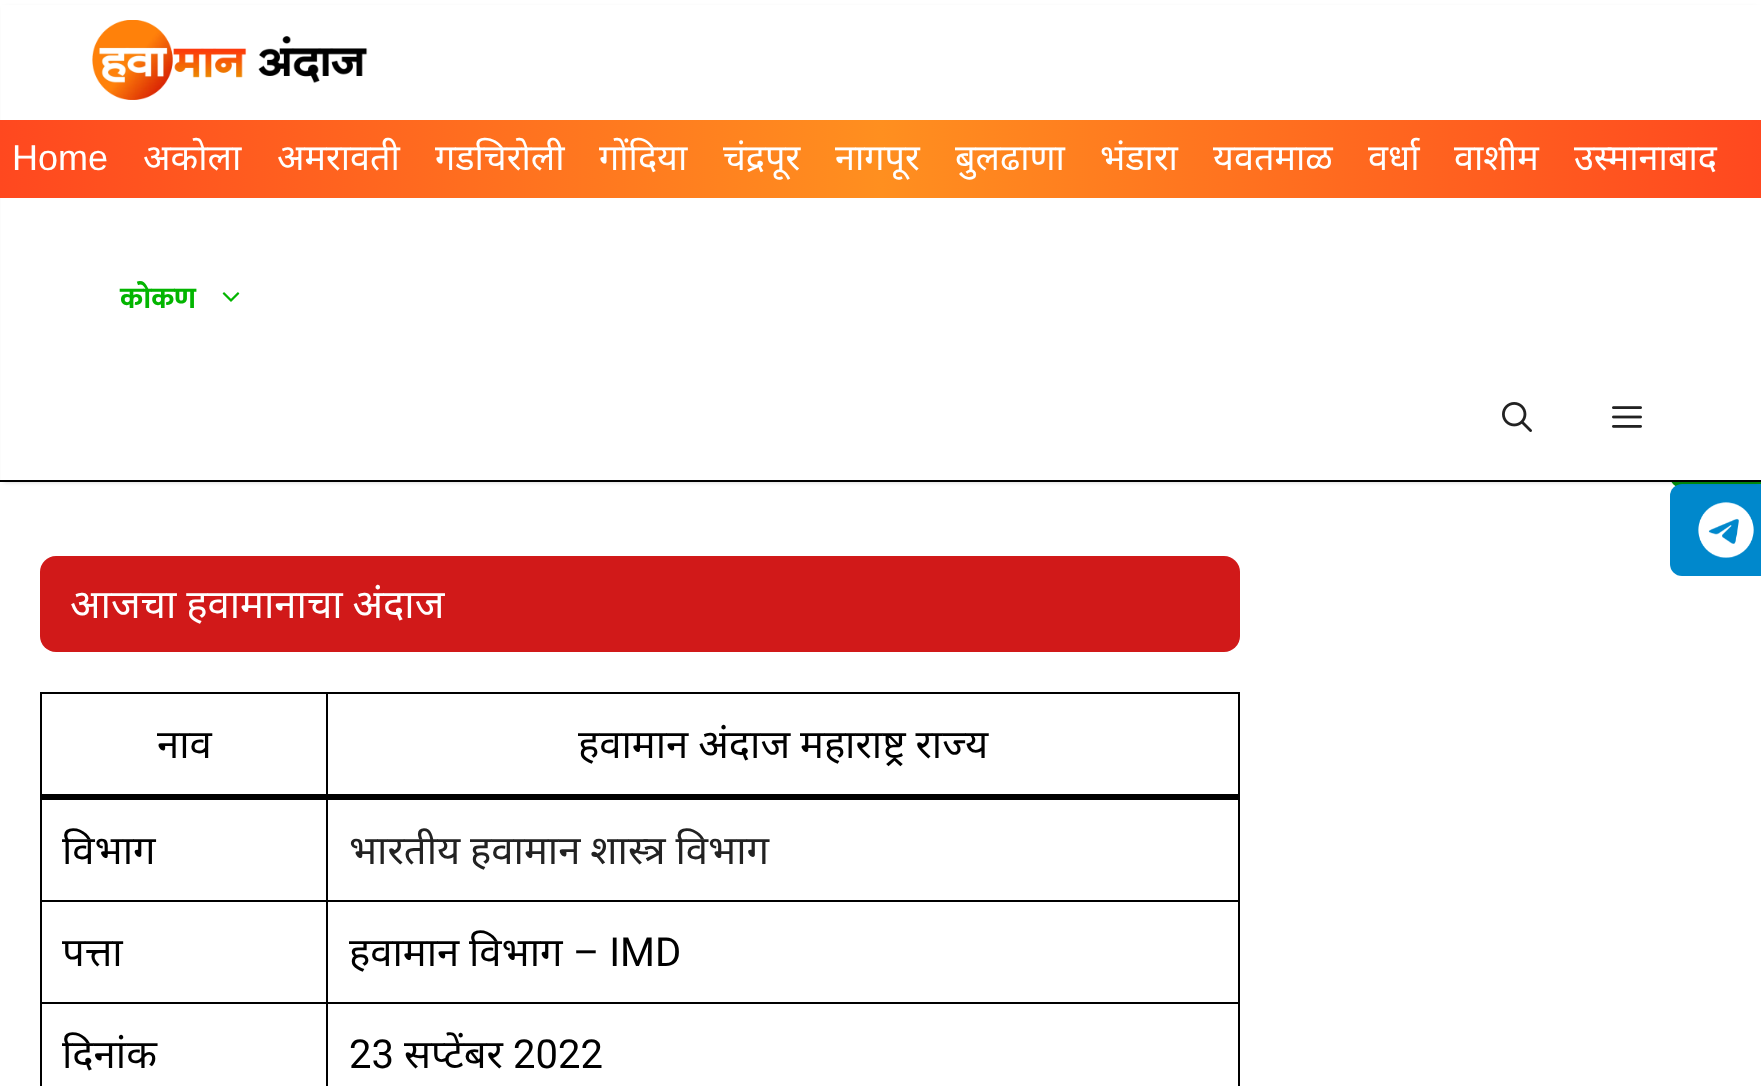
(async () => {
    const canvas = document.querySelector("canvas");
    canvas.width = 1761;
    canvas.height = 1086;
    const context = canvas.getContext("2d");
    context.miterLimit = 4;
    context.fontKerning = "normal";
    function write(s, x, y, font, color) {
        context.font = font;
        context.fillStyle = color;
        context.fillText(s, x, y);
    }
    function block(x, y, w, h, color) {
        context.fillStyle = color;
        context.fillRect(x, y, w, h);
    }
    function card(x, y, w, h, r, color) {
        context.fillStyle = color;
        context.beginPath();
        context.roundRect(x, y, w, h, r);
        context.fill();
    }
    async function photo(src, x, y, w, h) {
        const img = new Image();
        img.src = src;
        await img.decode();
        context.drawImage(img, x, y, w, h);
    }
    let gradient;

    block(0, 0, 1761, 1086, "rgb(255, 255, 255)");
    card(1670, 396, 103, 92, 12, "rgb(0, 143, 12)");
    card(1670, 484, 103, 92, 12, "rgb(0, 136, 204)");
    context.fillStyle = "rgba(0, 0, 0, 0.2)";
    context.filter = "blur(2px)";
    context.beginPath();
    context.rect(4, 8, 1754, 474);
    context.fill();
    context.filter = "none";
    block(1, 5, 1760, 475, "rgb(255, 255, 255)");
    gradient = context.createLinearGradient(0, 159, 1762, 159);
    gradient.addColorStop(0, "rgb(255, 72, 31)");
    gradient.addColorStop(0.5, "rgb(255, 143, 31)");
    gradient.addColorStop(1, "rgb(255, 72, 31)");
    context.fillStyle = gradient;
    context.fillRect(0, 120, 1761, 78);
    write("Home", 12, 170, "36px Liberation Sans", "rgb(255, 255, 255)");
    write("अकोला", 143, 170, "36px Noto Sans", "rgb(255, 255, 255)");
    write("अमरावती", 277, 170, "36px Noto Sans", "rgb(255, 255, 255)");
    write("गडचिरोली", 435, 170, "36px Noto Sans", "rgb(255, 255, 255)");
    write("गोंदिया", 599, 170, "36px Noto Sans", "rgb(255, 255, 255)");
    write("चंद्रपूर", 723, 170, "36px Noto Sans", "rgb(255, 255, 255)");
    write("नागपूर", 835, 170, "36px Noto Sans", "rgb(255, 255, 255)");
    write("बुलढाणा", 955, 170, "36px Noto Sans", "rgb(255, 255, 255)");
    write("भंडारा", 1100, 170, "36px Noto Sans", "rgb(255, 255, 255)");
    write("यवतमाळ", 1213, 170, "36px Noto Sans", "rgb(255, 255, 255)");
    write("वर्धा", 1368, 170, "36px Noto Sans", "rgb(255, 255, 255)");
    write("वाशीम", 1454, 170, "36px Noto Sans", "rgb(255, 255, 255)");
    write("उस्मानाबाद", 1574, 170, "36px Noto Sans", "rgb(255, 255, 255)");
    block(0, 480, 1761, 2, "rgb(0, 0, 0)");
    await photo("media/1.png", 92, 20, 276, 80);
    write("कोकण", 120, 308, "bold 30px Ek Mukta", "rgb(3, 181, 0)");
    await photo("media/2.png", 222, 292, 18, 10);
    await photo("media/3.png", 1502, 402, 30, 30);
    await photo("media/4.png", 1612, 406, 30, 22);
    await photo("media/5.png", 1698, 502, 56, 56);
    card(40, 556, 1200, 96, 16, "rgb(209, 25, 25)");
    context.wordSpacing = "-0.5px";
    write("आजचा हवामानाचा अंदाज", 70, 618, "40px Noto Sans", "rgb(255, 255, 255)");
    block(326, 692, 914, 2, "rgb(0, 0, 0)");
    block(326, 900, 914, 2, "rgb(0, 0, 0)");
    block(326, 1002, 914, 2, "rgb(0, 0, 0)");
    block(326, 1002, 2, 84, "rgb(0, 0, 0)");
    block(40, 1002, 288, 2, "rgb(0, 0, 0)");
    block(326, 900, 2, 104, "rgb(0, 0, 0)");
    block(40, 900, 288, 2, "rgb(0, 0, 0)");
    block(326, 796, 2, 106, "rgb(0, 0, 0)");
    block(326, 692, 2, 106, "rgb(0, 0, 0)");
    block(40, 692, 288, 2, "rgb(0, 0, 0)");
    block(40, 1002, 2, 84, "rgb(0, 0, 0)");
    block(40, 796, 2, 208, "rgb(0, 0, 0)");
    block(40, 692, 2, 106, "rgb(0, 0, 0)");
    block(1238, 1002, 2, 84, "rgb(0, 0, 0)");
    block(1238, 796, 2, 208, "rgb(0, 0, 0)");
    block(1238, 692, 2, 106, "rgb(0, 0, 0)");
    block(40, 794, 1200, 6, "rgb(0, 0, 0)");
    context.wordSpacing = "0px";
    write("नाव", 157, 758, "40px Noto Sans", "rgb(0, 0, 0)");
    context.wordSpacing = "-0.5px";
    write("हवामान अंदाज महाराष्ट्र राज्य", 578, 758, "40px Noto Sans", "rgb(0, 0, 0)");
    context.wordSpacing = "0px";
    write("विभाग", 62, 864, "40px Noto Sans", "rgb(0, 0, 0)");
    context.wordSpacing = "-0.5px";
    write("भारतीय हवामान शास्त्र विभाग", 349, 864, "40px Noto Sans", "rgb(34, 34, 34)");
    context.wordSpacing = "0px";
    write("पत्ता", 62, 966, "40px Noto Sans", "rgb(0, 0, 0)");
    write("हवामान", 349, 966, "40px Noto Sans", "rgb(0, 0, 0)");
    write("विभाग", 469, 966, "40px Noto Sans", "rgb(0, 0, 0)");
    write("– IMD", 573, 966, "40px Roboto", "rgb(0, 0, 0)");
    write("दिनांक", 62, 1068, "40px Noto Sans", "rgb(0, 0, 0)");
    write("23", 349, 1068, "40px Roboto", "rgb(0, 0, 0)");
    write("सप्टेंबर", 404, 1068, "40px Noto Sans", "rgb(0, 0, 0)");
    write("2022", 513, 1068, "40px Roboto", "rgb(0, 0, 0)");
})();
